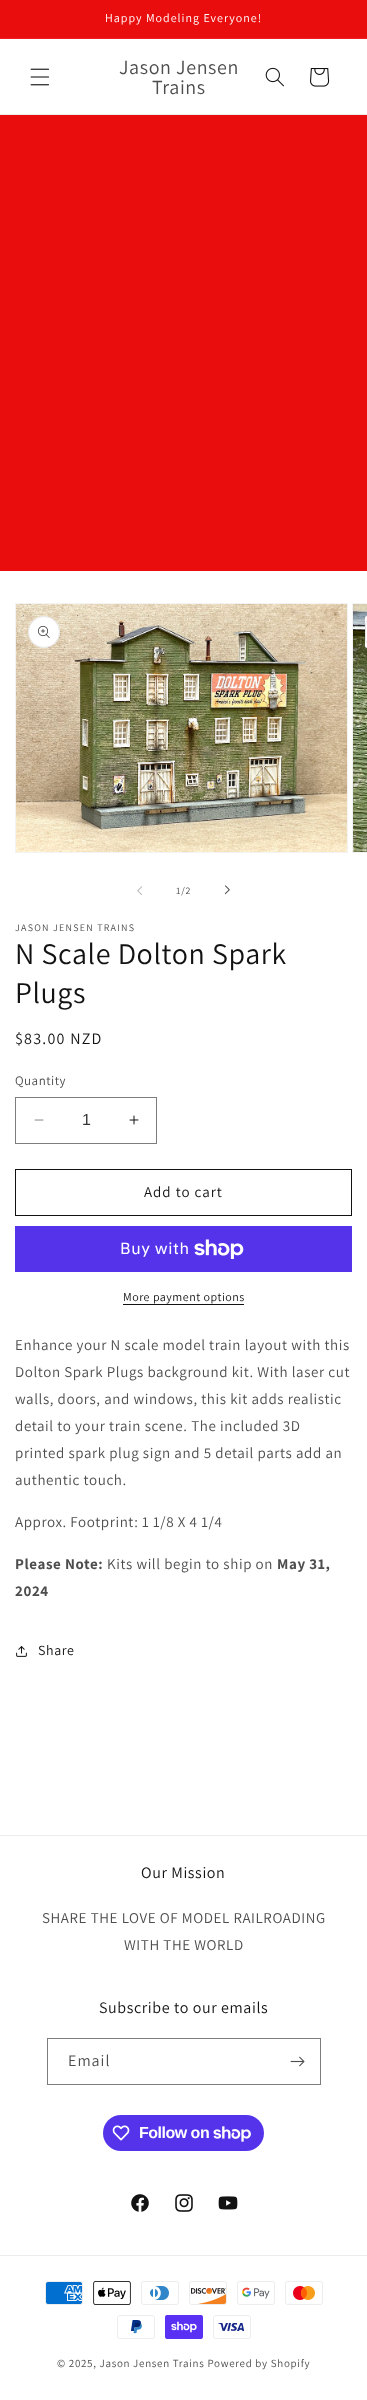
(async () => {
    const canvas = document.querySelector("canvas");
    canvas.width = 367;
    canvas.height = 2400;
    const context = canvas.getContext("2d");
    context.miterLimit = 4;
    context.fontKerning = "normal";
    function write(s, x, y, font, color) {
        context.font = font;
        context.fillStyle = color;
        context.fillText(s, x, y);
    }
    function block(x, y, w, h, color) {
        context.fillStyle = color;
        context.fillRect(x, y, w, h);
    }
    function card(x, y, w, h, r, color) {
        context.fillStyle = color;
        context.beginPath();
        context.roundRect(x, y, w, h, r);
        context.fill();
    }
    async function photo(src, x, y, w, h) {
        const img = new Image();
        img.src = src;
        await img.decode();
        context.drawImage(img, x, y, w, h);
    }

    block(0, 0, 367, 2400, "rgb(255, 255, 255)");
    block(0, 0, 367, 38, "rgb(234, 13, 13)");
    block(0, 38, 367, 1, "rgb(236, 32, 32)");
    context.letterSpacing = "1px";
    write("Happy Modeling Everyone!", 105, 22, "12px Assistant", "rgb(255, 255, 255)");
    block(0, 114, 367, 1, "rgb(236, 236, 236)");
    await photo("media/1.png", 30, 68, 20, 18);
    context.letterSpacing = "0.6px";
    write("Jason Jensen", 119, 74, "20px Assistant", "rgb(77, 77, 77)");
    write("Trains", 152, 94, "20px Assistant", "rgb(77, 77, 77)");
    await photo("media/2.png", 265, 67, 19, 20);
    await photo("media/3.png", 310, 68, 20, 19);
    block(0, 115, 367, 456, "rgb(234, 13, 13)");
    context.strokeStyle = "rgb(243, 243, 243)";
    context.strokeRect(15.5, 603.5, 332, 249);
    await photo("media/4.png", 16, 604, 331, 248);
    context.fillStyle = "rgb(255, 255, 255)";
    context.beginPath();
    context.arc(44, 632, 16, 0, Math.PI * 2);
    context.fill();
    context.beginPath();
    context.arc(44, 632, 15.5, 0, Math.PI * 2);
    context.strokeStyle = "rgba(18, 18, 18, 0.1)";
    context.stroke();
    await photo("media/5.png", 38, 626, 12, 12);
    context.strokeStyle = "rgb(243, 243, 243)";
    context.strokeRect(352.5, 603.5, 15, 249);
    await photo("media/6.png", 353, 604, 14, 248);
    context.beginPath();
    context.roundRect(365, 616, 2, 32, [16, 0, 0, 16]);
    context.fill();
    context.beginPath();
    context.roundRect(365.5, 616.5, 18, 31, 15.5);
    context.strokeStyle = "rgba(18, 18, 18, 0.1)";
    context.stroke();
    await photo("media/7.png", 137, 886, 5, 9);
    context.letterSpacing = "0.7px";
    write("1/2", 176, 894, "10px Assistant", "rgb(77, 77, 77)");
    await photo("media/8.png", 224, 885, 6, 10);
    context.letterSpacing = "1.25px";
    write("JASON JENSEN TRAINS", 15, 931, "10px Assistant", "rgb(77, 77, 77)");
    context.letterSpacing = "0.6px";
    write("N Scale Dolton Spark", 15, 964, "30px Assistant", "rgb(18, 18, 18)");
    write("Plugs", 15, 1003, "30px Assistant", "rgb(18, 18, 18)");
    context.letterSpacing = "1.25px";
    write("$83.00 NZD", 15, 1044, "16px Assistant", "rgb(18, 18, 18)");
    context.letterSpacing = "0.5px";
    write("Quantity", 15, 1085, "13px Assistant", "rgb(77, 77, 77)");
    await photo("media/9.png", 34, 1119, 10, 2);
    await photo("media/10.png", 129, 1115, 10, 10);
    context.strokeStyle = "rgb(125, 125, 125)";
    context.strokeRect(15.5, 1097.5, 141, 46);
    context.letterSpacing = "0px";
    write("1", 82, 1125, "16px Liberation Sans", "rgb(54, 54, 54)");
    context.strokeStyle = "rgb(18, 18, 18)";
    context.strokeRect(15.5, 1169.5, 336, 46);
    context.letterSpacing = "1px";
    write("Add to cart", 144, 1197, "15px Assistant", "rgb(18, 18, 18)");
    block(15, 1226, 337, 46, "rgb(84, 51, 235)");
    context.letterSpacing = "0.6px";
    write("Buy with", 120, 1254, "16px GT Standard", "rgb(255, 255, 255)");
    await photo("media/11.png", 194, 1239, 50, 20);
    context.letterSpacing = "0.5px";
    write("More payment options", 123, 1301, "12px Assistant", "rgb(18, 18, 18)");
    block(123, 1304, 121, 1, "rgb(18, 18, 18)");
    context.letterSpacing = "0.6px";
    write("Enhance your N scale model train layout with this", 15, 1350, "15px Assistant", "rgb(77, 77, 77)");
    write("Dolton Spark Plugs background kit. With laser cut", 15, 1377, "15px Assistant", "rgb(77, 77, 77)");
    write("walls, doors, and windows, this kit adds realistic", 15, 1404, "15px Assistant", "rgb(77, 77, 77)");
    write("detail to your train scene. The included 3D", 15, 1431, "15px Assistant", "rgb(77, 77, 77)");
    write("printed spark plug sign and 5 detail parts add an", 15, 1458, "15px Assistant", "rgb(77, 77, 77)");
    write("authentic touch.", 15, 1485, "15px Assistant", "rgb(77, 77, 77)");
    write("Approx. Footprint: 1 1/8 X 4 1/4", 15, 1527, "15px Assistant", "rgb(77, 77, 77)");
    write("Please Note:", 15, 1569, "bold 15px Assistant", "rgb(77, 77, 77)");
    write("Kits will begin to ship on", 107, 1569, "15px Assistant", "rgb(77, 77, 77)");
    write("May 31,", 277, 1569, "bold 15px Assistant", "rgb(77, 77, 77)");
    write("2024", 15, 1596, "bold 15px Assistant", "rgb(77, 77, 77)");
    await photo("media/12.png", 16, 1646, 11, 11);
    write("Share", 38, 1655, "14px Assistant", "rgb(18, 18, 18)");
    block(0, 1835, 367, 1, "rgb(236, 236, 236)");
    write("Our Mission", 141, 1878, "16px Assistant", "rgb(18, 18, 18)");
    write("SHARE THE LOVE OF MODEL RAILROADING", 42, 1923, "15px Assistant", "rgb(77, 77, 77)");
    write("WITH THE WORLD", 124, 1950, "15px Assistant", "rgb(77, 77, 77)");
    write("Subscribe to our emails", 99, 2013, "16px Assistant", "rgb(18, 18, 18)");
    context.strokeStyle = "rgb(125, 125, 125)";
    context.strokeRect(47.5, 2038.5, 273, 46);
    context.letterSpacing = "1px";
    write("Email", 68, 2066, "16px Assistant", "rgb(77, 77, 77)");
    await photo("media/13.png", 290, 2056, 15, 11);
    card(103, 2115, 161, 36, 18, "rgb(84, 51, 235)");
    await photo("media/14.png", 112, 2125, 18, 16);
    context.letterSpacing = "-0.5px";
    write("Follow on", 139, 2138, "bold 16px Liberation Sans", "rgb(255, 255, 255)");
    await photo("media/15.png", 213, 2126, 38, 16);
    await photo("media/16.png", 131, 2194, 18, 18);
    await photo("media/17.png", 175, 2194, 18, 18);
    await photo("media/18.png", 218, 2196, 20, 14);
    block(0, 2255, 367, 1, "rgb(236, 236, 236)");
    await photo("media/19.png", 45, 2281, 38, 24);
    await photo("media/20.png", 93, 2281, 38, 24);
    await photo("media/21.png", 141, 2281, 38, 24);
    await photo("media/22.png", 189, 2281, 38, 24);
    await photo("media/23.png", 237, 2281, 38, 24);
    await photo("media/24.png", 285, 2281, 38, 24);
    await photo("media/25.png", 117, 2315, 38, 24);
    await photo("media/26.png", 165, 2315, 38, 24);
    await photo("media/27.png", 213, 2315, 38, 24);
    context.letterSpacing = "0.7px";
    write("© 2025, Jason Jensen Trains Powered by Shopify", 57, 2367, "11px Assistant", "rgb(77, 77, 77)");
})();
